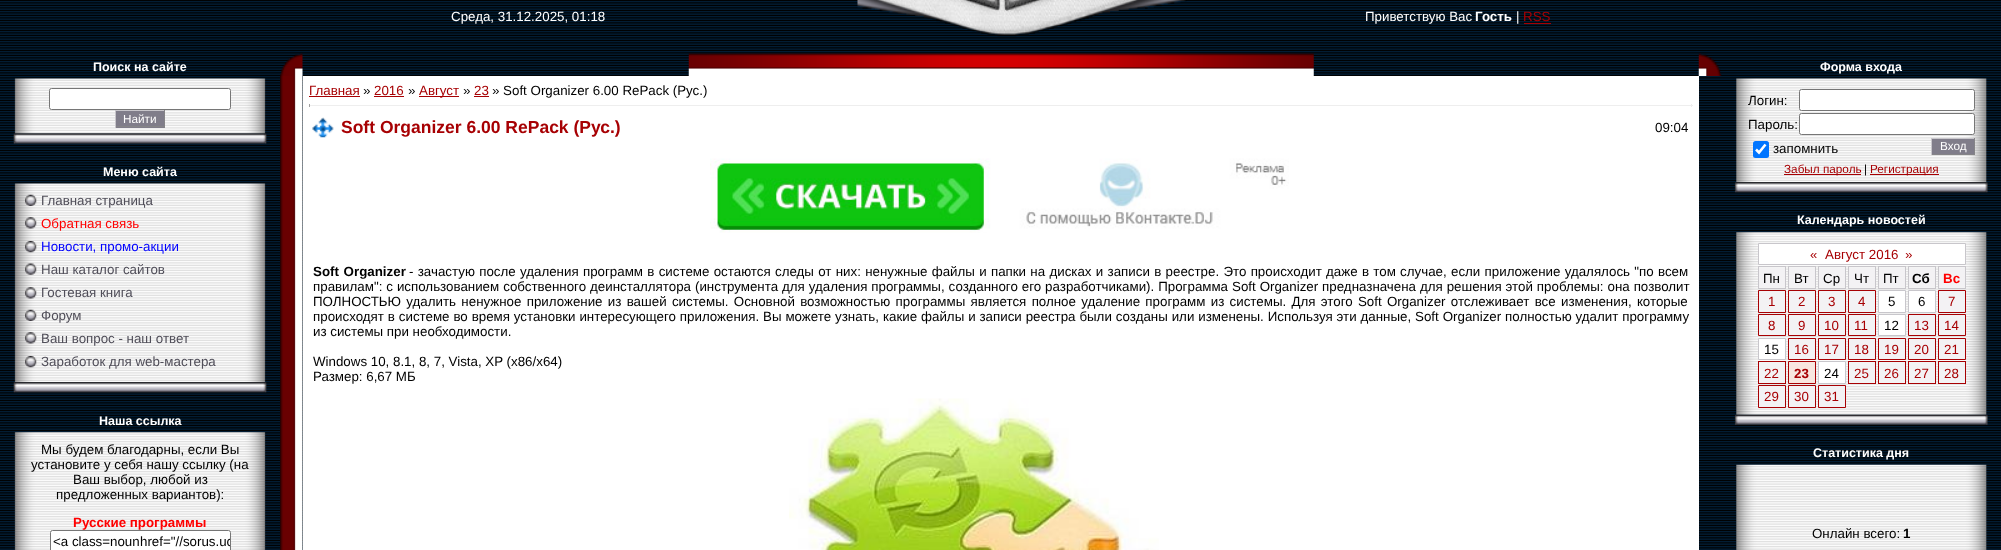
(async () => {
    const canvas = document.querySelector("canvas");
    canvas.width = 2001;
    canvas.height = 550;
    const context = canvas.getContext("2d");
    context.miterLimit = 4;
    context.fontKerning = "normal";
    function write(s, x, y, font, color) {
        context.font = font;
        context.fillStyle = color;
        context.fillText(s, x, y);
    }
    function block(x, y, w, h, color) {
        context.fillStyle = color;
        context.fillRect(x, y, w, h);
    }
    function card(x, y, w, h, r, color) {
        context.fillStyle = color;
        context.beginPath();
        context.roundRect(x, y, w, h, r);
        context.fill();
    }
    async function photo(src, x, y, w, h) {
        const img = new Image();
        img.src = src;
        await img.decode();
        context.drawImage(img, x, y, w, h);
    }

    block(0, 0, 2001, 550, "rgb(255, 255, 255)");
    await photo("media/1.png", 0, 0, 2001, 550);
    write("Среда, 31.12.2025, 01:18", 451, 21, "13.33px Liberation Sans", "rgb(255, 255, 255)");
    await photo("media/2.png", 857, 0, 288, 37);
    await photo("media/3.png", 1145, 0, 42, 9);
    write("Приветствую Вас", 1365, 21, "13.33px Liberation Sans", "rgb(255, 255, 255)");
    write("Гость", 1475, 21, "bold 13.33px Liberation Sans", "rgb(255, 255, 255)");
    write("|", 1516, 21, "13.33px Liberation Sans", "rgb(255, 255, 255)");
    write("RSS", 1523, 21, "13.33px Liberation Sans", "rgb(167, 0, 3)");
    block(1524, 23, 27, 1, "rgb(167, 0, 3)");
    write("Поиск на сайте", 93, 71, "bold 12.5px Liberation Sans", "rgb(255, 255, 255)");
    await photo("media/4.png", 14, 78, 252, 56);
    context.beginPath();
    context.roundRect(49.5, 88.5, 181, 21, 2);
    context.fill();
    context.strokeStyle = "rgb(118, 118, 118)";
    context.stroke();
    block(116, 111, 48, 17, "rgb(128, 125, 138)");
    block(115, 110, 50, 1, "rgb(200, 198, 203)");
    block(164, 110, 1, 18, "rgb(133, 132, 135)");
    block(115, 126, 50, 1, "rgb(133, 132, 135)");
    block(115, 110, 1, 18, "rgb(200, 198, 203)");
    write("Найти", 123, 123, "11.75px Liberation Sans", "rgb(255, 255, 255)");
    await photo("media/5.png", 13, 133, 254, 11);
    write("Меню сайта", 103, 176, "bold 12.5px Liberation Sans", "rgb(255, 255, 255)");
    await photo("media/6.png", 14, 183, 252, 200);
    await photo("media/7.png", 25, 194, 12, 12);
    write("Главная страница", 41, 205, "13.33px Liberation Sans", "rgb(80, 78, 89)");
    await photo("media/8.png", 25, 217, 12, 12);
    write("Обратная связь", 41, 228, "13.33px Liberation Sans", "rgb(255, 0, 0)");
    await photo("media/9.png", 25, 241, 12, 12);
    write("Новости, промо-акции", 41, 251, "13.33px Liberation Sans", "rgb(0, 0, 255)");
    await photo("media/10.png", 25, 263, 12, 12);
    write("Наш каталог сайтов", 41, 274, "13.33px Liberation Sans", "rgb(80, 78, 89)");
    await photo("media/8.png", 25, 287, 12, 12);
    write("Гостевая книга", 41, 297, "13.33px Liberation Sans", "rgb(80, 78, 89)");
    await photo("media/11.png", 25, 309, 12, 12);
    write("Форум", 41, 320, "13.33px Liberation Sans", "rgb(80, 78, 89)");
    await photo("media/8.png", 25, 332, 12, 12);
    write("Ваш вопрос - наш ответ", 41, 343, "13.33px Liberation Sans", "rgb(80, 78, 89)");
    await photo("media/9.png", 25, 356, 12, 12);
    write("Заработок для web-мастера", 41, 366, "13.33px Liberation Sans", "rgb(80, 78, 89)");
    await photo("media/12.png", 13, 382, 254, 11);
    write("Наша ссылка", 99, 425, "bold 12.5px Liberation Sans", "rgb(255, 255, 255)");
    await photo("media/13.png", 14, 432, 252, 118);
    write("Мы будем благодарны, если Вы", 41, 454, "13.33px Liberation Sans", "rgb(0, 0, 0)");
    write("установите у себя нашу ссылку (на", 31, 469, "13.33px Liberation Sans", "rgb(0, 0, 0)");
    write("Ваш выбор, любой из", 73, 484, "13.33px Liberation Sans", "rgb(0, 0, 0)");
    write("предложенных вариантов):", 56, 499, "13.33px Liberation Sans", "rgb(0, 0, 0)");
    write("Русские программы", 73, 527, "bold 13.33px Liberation Sans", "rgb(255, 0, 0)");
    context.fillStyle = "rgb(255, 255, 255)";
    context.beginPath();
    context.roundRect(50.5, 530.5, 180, 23, 2);
    context.fill();
    context.stroke();
    write("<a class=noun", 53, 546, "13.33px Liberation Sans", "rgb(0, 0, 0)");
    context.save();
    context.beginPath();
    context.rect(51, 531, 179, 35);
    context.clip();
    write("href=\"//sorus.uc", 140, 546, "13.33px Liberation Sans", "rgb(0, 0, 0)");
    context.restore();
    await photo("media/14.png", 280, 53, 23, 23);
    await photo("media/15.png", 688, 53, 626, 23);
    await photo("media/16.png", 1698, 53, 24, 23);
    await photo("media/17.png", 280, 76, 23, 474);
    block(303, 76, 1396, 474, "rgb(255, 255, 255)");
    write("Главная", 309, 95, "13.33px Liberation Sans", "rgb(167, 0, 3)");
    block(309, 96, 51, 1, "rgb(167, 0, 3)");
    write("»", 363, 95, "13.33px Liberation Sans", "rgb(0, 0, 0)");
    write("2016", 374, 95, "13.33px Liberation Sans", "rgb(167, 0, 3)");
    block(374, 96, 30, 1, "rgb(167, 0, 3)");
    write("»", 408, 95, "13.33px Liberation Sans", "rgb(0, 0, 0)");
    block(419, 96, 40, 1, "rgb(167, 0, 3)");
    write("Август", 419, 95, "13.33px Liberation Sans", "rgb(167, 0, 3)");
    write("»", 463, 95, "13.33px Liberation Sans", "rgb(0, 0, 0)");
    write("23", 474, 95, "13.33px Liberation Sans", "rgb(167, 0, 3)");
    block(474, 96, 15, 1, "rgb(167, 0, 3)");
    write("» Soft Organizer 6.00 RePack (Рус.)", 492, 95, "13.33px Liberation Sans", "rgb(0, 0, 0)");
    block(1691, 104, 1, 3, "rgb(238, 238, 238)");
    block(309, 105, 1384, 1, "rgb(238, 238, 238)");
    block(309, 104, 1, 3, "rgb(159, 159, 159)");
    await photo("media/18.png", 312, 117, 22, 21);
    write("Soft Organizer 6.00 RePack (Рус.)", 341, 133, "bold 17.5px Liberation Sans", "rgb(167, 0, 3)");
    write("09:04", 1655, 132, "13.33px Liberation Sans", "rgb(0, 0, 0)");
    await photo("media/19.png", 710, 158, 579, 75);
    context.wordSpacing = "1px";
    write("Soft Organizer", 313, 276, "bold 13.33px Liberation Sans", "rgb(0, 0, 0)");
    context.wordSpacing = "0.6px";
    write("- зачастую после удаления программ в системе остаются следы от них: ненужные файлы и папки на дисках и записи в реестре. Это происходит даже в том случае, если приложение удалялось \"по всем", 409, 276, "13.33px Liberation Sans", "rgb(0, 0, 0)");
    context.wordSpacing = "0.25px";
    write("правилам\": с использованием собственного деинсталлятора (инструмента для удаления программы, созданного его разработчиками). Программа Soft Organizer предназначена для решения этой проблемы: она позволит", 313, 291, "13.33px Liberation Sans", "rgb(0, 0, 0)");
    context.wordSpacing = "1.6px";
    write("ПОЛНОСТЬЮ удалить ненужное приложение из вашей системы. Основной возможностью программы является полное удаление программ из системы. Для этого Soft Organizer отслеживает все изменения, которые", 313, 306, "13.33px Liberation Sans", "rgb(0, 0, 0)");
    context.wordSpacing = "0.2px";
    write("происходят в системе во время установки интересующего приложения. Вы можете узнать, какие файлы и записи реестра были созданы или изменены. Используя эти данные, Soft Organizer полностью удалит программу", 313, 321, "13.33px Liberation Sans", "rgb(0, 0, 0)");
    context.wordSpacing = "0px";
    write("из системы при необходимости.", 313, 336, "13.33px Liberation Sans", "rgb(0, 0, 0)");
    write("Windows 10, 8.1, 8, 7, Vista, XP (x86/x64)", 313, 366, "13.33px Liberation Sans", "rgb(0, 0, 0)");
    write("Размер: 6,67 МБ", 313, 381, "13.33px Liberation Sans", "rgb(0, 0, 0)");
    await photo("media/20.png", 789, 398, 370, 152);
    write("Форма входа", 1820, 71, "bold 12.5px Liberation Sans", "rgb(255, 255, 255)");
    await photo("media/21.png", 1736, 78, 251, 105);
    write("Логин:", 1748, 105, "13.33px Liberation Sans", "rgb(0, 0, 0)");
    context.fillStyle = "rgb(255, 255, 255)";
    context.beginPath();
    context.roundRect(1799.5, 89.5, 175, 21, 2);
    context.fill();
    context.stroke();
    write("Пароль:", 1748, 129, "13.33px Liberation Sans", "rgb(0, 0, 0)");
    context.fillStyle = "rgb(255, 255, 255)";
    context.beginPath();
    context.roundRect(1799.5, 113.5, 175, 21, 2);
    context.fill();
    context.stroke();
    card(1753, 141, 16, 17, 2.5, "rgb(0, 117, 255)");
    context.beginPath();
    context.moveTo(1756, 149.5);
    context.lineTo(1759, 152.5);
    context.lineTo(1765.5, 144.5);
    context.strokeStyle = "rgb(255, 255, 255)";
    context.lineWidth = 2.6;
    context.stroke();
    write("запомнить", 1773, 153, "13.33px Liberation Sans", "rgb(0, 0, 0)");
    block(1932, 139, 42, 15, "rgb(128, 125, 138)");
    block(1931, 138, 44, 1, "rgb(200, 198, 203)");
    block(1974, 138, 1, 17, "rgb(133, 132, 135)");
    block(1931, 154, 44, 1, "rgb(133, 132, 135)");
    block(1931, 138, 1, 17, "rgb(200, 198, 203)");
    write("Вход", 1940, 150, "11.75px Liberation Sans", "rgb(255, 255, 255)");
    block(1784, 174, 77, 1, "rgb(167, 0, 3)");
    write("Забыл пароль", 1784, 173, "11.75px Liberation Sans", "rgb(167, 0, 3)");
    write("|", 1864, 173, "11.75px Liberation Sans", "rgb(0, 0, 0)");
    block(1870, 174, 69, 1, "rgb(167, 0, 3)");
    write("Регистрация", 1870, 173, "11.75px Liberation Sans", "rgb(167, 0, 3)");
    await photo("media/22.png", 1734, 182, 254, 11);
    write("Календарь новостей", 1797, 224, "bold 12.5px Liberation Sans", "rgb(255, 255, 255)");
    await photo("media/23.png", 1736, 232, 251, 183);
    context.beginPath();
    context.rect(1758.5, 243.5, 207, 21);
    context.fill();
    context.strokeStyle = "rgb(200, 198, 203)";
    context.lineWidth = 1;
    context.stroke();
    write("«", 1810, 259, "13.33px Liberation Sans", "rgb(167, 0, 3)");
    write("Август 2016", 1825, 259, "13.33px Liberation Sans", "rgb(167, 0, 3)");
    write("»", 1905, 259, "13.33px Liberation Sans", "rgb(167, 0, 3)");
    block(1759, 268, 26, 19, "rgb(243, 242, 244)");
    context.strokeRect(1758.5, 266.5, 27, 22);
    write("Пн", 1763, 283, "13.33px Liberation Sans", "rgb(0, 0, 0)");
    block(1789, 268, 26, 19, "rgb(243, 242, 244)");
    context.strokeRect(1788.5, 266.5, 27, 22);
    write("Вт", 1794, 283, "13.33px Liberation Sans", "rgb(0, 0, 0)");
    block(1819, 268, 26, 19, "rgb(243, 242, 244)");
    context.strokeRect(1818.5, 266.5, 27, 22);
    write("Ср", 1823, 283, "13.33px Liberation Sans", "rgb(0, 0, 0)");
    block(1849, 268, 26, 19, "rgb(243, 242, 244)");
    context.strokeRect(1848.5, 266.5, 27, 22);
    write("Чт", 1854, 283, "13.33px Liberation Sans", "rgb(0, 0, 0)");
    block(1879, 268, 26, 19, "rgb(243, 242, 244)");
    context.strokeRect(1878.5, 266.5, 27, 22);
    write("Пт", 1883, 283, "13.33px Liberation Sans", "rgb(0, 0, 0)");
    block(1909, 268, 26, 19, "rgb(243, 242, 244)");
    context.strokeRect(1908.5, 266.5, 27, 22);
    write("Сб", 1912, 283, "bold 13.33px Liberation Sans", "rgb(0, 0, 0)");
    block(1939, 268, 26, 19, "rgb(243, 242, 244)");
    context.strokeRect(1938.5, 266.5, 27, 22);
    write("Вс", 1943, 283, "bold 13.33px Liberation Sans", "rgb(255, 0, 0)");
    context.fillStyle = "rgb(243, 242, 244)";
    context.beginPath();
    context.rect(1758.5, 290.5, 27, 22);
    context.fill();
    context.strokeStyle = "rgb(167, 0, 3)";
    context.stroke();
    write("1", 1768, 306, "13.33px Liberation Sans", "rgb(167, 0, 3)");
    context.fillStyle = "rgb(243, 242, 244)";
    context.beginPath();
    context.rect(1788.5, 290.5, 27, 22);
    context.fill();
    context.stroke();
    write("2", 1798, 306, "13.33px Liberation Sans", "rgb(167, 0, 3)");
    context.fillStyle = "rgb(243, 242, 244)";
    context.beginPath();
    context.rect(1818.5, 290.5, 27, 22);
    context.fill();
    context.stroke();
    write("3", 1828, 306, "13.33px Liberation Sans", "rgb(167, 0, 3)");
    context.fillStyle = "rgb(243, 242, 244)";
    context.beginPath();
    context.rect(1848.5, 290.5, 27, 22);
    context.fill();
    context.stroke();
    write("4", 1858, 306, "13.33px Liberation Sans", "rgb(167, 0, 3)");
    context.fillStyle = "rgb(255, 255, 255)";
    context.beginPath();
    context.rect(1878.5, 290.5, 27, 22);
    context.fill();
    context.strokeStyle = "rgb(200, 198, 203)";
    context.stroke();
    write("5", 1888, 306, "13.33px Liberation Sans", "rgb(0, 0, 0)");
    context.fillStyle = "rgb(255, 255, 255)";
    context.beginPath();
    context.rect(1908.5, 290.5, 27, 22);
    context.fill();
    context.stroke();
    write("6", 1918, 306, "13.33px Liberation Sans", "rgb(0, 0, 0)");
    context.fillStyle = "rgb(243, 242, 244)";
    context.beginPath();
    context.rect(1938.5, 290.5, 27, 22);
    context.fill();
    context.strokeStyle = "rgb(167, 0, 3)";
    context.stroke();
    write("7", 1948, 306, "13.33px Liberation Sans", "rgb(167, 0, 3)");
    context.fillStyle = "rgb(243, 242, 244)";
    context.beginPath();
    context.rect(1758.5, 314.5, 27, 21);
    context.fill();
    context.stroke();
    write("8", 1768, 330, "13.33px Liberation Sans", "rgb(167, 0, 3)");
    context.fillStyle = "rgb(243, 242, 244)";
    context.beginPath();
    context.rect(1788.5, 314.5, 27, 21);
    context.fill();
    context.stroke();
    write("9", 1798, 330, "13.33px Liberation Sans", "rgb(167, 0, 3)");
    context.fillStyle = "rgb(243, 242, 244)";
    context.beginPath();
    context.rect(1818.5, 314.5, 27, 21);
    context.fill();
    context.stroke();
    write("10", 1824, 330, "13.33px Liberation Sans", "rgb(167, 0, 3)");
    context.fillStyle = "rgb(243, 242, 244)";
    context.beginPath();
    context.rect(1848.5, 314.5, 27, 21);
    context.fill();
    context.stroke();
    write("11", 1854, 330, "13.33px Liberation Sans", "rgb(167, 0, 3)");
    context.fillStyle = "rgb(255, 255, 255)";
    context.beginPath();
    context.rect(1878.5, 314.5, 27, 21);
    context.fill();
    context.strokeStyle = "rgb(200, 198, 203)";
    context.stroke();
    write("12", 1884, 330, "13.33px Liberation Sans", "rgb(0, 0, 0)");
    context.fillStyle = "rgb(243, 242, 244)";
    context.beginPath();
    context.rect(1908.5, 314.5, 27, 21);
    context.fill();
    context.strokeStyle = "rgb(167, 0, 3)";
    context.stroke();
    write("13", 1914, 330, "13.33px Liberation Sans", "rgb(167, 0, 3)");
    context.fillStyle = "rgb(243, 242, 244)";
    context.beginPath();
    context.rect(1938.5, 314.5, 27, 21);
    context.fill();
    context.stroke();
    write("14", 1944, 330, "13.33px Liberation Sans", "rgb(167, 0, 3)");
    context.fillStyle = "rgb(255, 255, 255)";
    context.beginPath();
    context.rect(1758.5, 338.5, 27, 21);
    context.fill();
    context.strokeStyle = "rgb(200, 198, 203)";
    context.stroke();
    write("15", 1764, 354, "13.33px Liberation Sans", "rgb(0, 0, 0)");
    context.fillStyle = "rgb(243, 242, 244)";
    context.beginPath();
    context.rect(1788.5, 338.5, 27, 21);
    context.fill();
    context.strokeStyle = "rgb(167, 0, 3)";
    context.stroke();
    write("16", 1794, 354, "13.33px Liberation Sans", "rgb(167, 0, 3)");
    context.fillStyle = "rgb(243, 242, 244)";
    context.beginPath();
    context.rect(1818.5, 338.5, 27, 21);
    context.fill();
    context.stroke();
    write("17", 1824, 354, "13.33px Liberation Sans", "rgb(167, 0, 3)");
    context.fillStyle = "rgb(243, 242, 244)";
    context.beginPath();
    context.rect(1848.5, 338.5, 27, 21);
    context.fill();
    context.stroke();
    write("18", 1854, 354, "13.33px Liberation Sans", "rgb(167, 0, 3)");
    context.fillStyle = "rgb(243, 242, 244)";
    context.beginPath();
    context.rect(1878.5, 338.5, 27, 21);
    context.fill();
    context.stroke();
    write("19", 1884, 354, "13.33px Liberation Sans", "rgb(167, 0, 3)");
    context.fillStyle = "rgb(243, 242, 244)";
    context.beginPath();
    context.rect(1908.5, 338.5, 27, 21);
    context.fill();
    context.stroke();
    write("20", 1914, 354, "13.33px Liberation Sans", "rgb(167, 0, 3)");
    context.fillStyle = "rgb(243, 242, 244)";
    context.beginPath();
    context.rect(1938.5, 338.5, 27, 21);
    context.fill();
    context.stroke();
    write("21", 1944, 354, "13.33px Liberation Sans", "rgb(167, 0, 3)");
    block(1759, 363, 26, 19, "rgb(243, 242, 244)");
    context.strokeRect(1758.5, 361.5, 27, 22);
    write("22", 1764, 378, "13.33px Liberation Sans", "rgb(167, 0, 3)");
    context.fillStyle = "rgb(248, 230, 223)";
    context.beginPath();
    context.rect(1788.5, 361.5, 27, 22);
    context.fill();
    context.stroke();
    write("23", 1794, 378, "bold 13.33px Liberation Sans", "rgb(167, 0, 3)");
    context.fillStyle = "rgb(255, 255, 255)";
    context.beginPath();
    context.rect(1818.5, 361.5, 27, 22);
    context.fill();
    context.strokeStyle = "rgb(200, 198, 203)";
    context.stroke();
    write("24", 1824, 378, "13.33px Liberation Sans", "rgb(0, 0, 0)");
    block(1849, 363, 26, 19, "rgb(243, 242, 244)");
    context.strokeStyle = "rgb(167, 0, 3)";
    context.strokeRect(1848.5, 361.5, 27, 22);
    write("25", 1854, 378, "13.33px Liberation Sans", "rgb(167, 0, 3)");
    block(1879, 363, 26, 19, "rgb(243, 242, 244)");
    context.strokeRect(1878.5, 361.5, 27, 22);
    write("26", 1884, 378, "13.33px Liberation Sans", "rgb(167, 0, 3)");
    block(1909, 363, 26, 19, "rgb(243, 242, 244)");
    context.strokeRect(1908.5, 361.5, 27, 22);
    write("27", 1914, 378, "13.33px Liberation Sans", "rgb(167, 0, 3)");
    block(1939, 363, 26, 19, "rgb(243, 242, 244)");
    context.strokeRect(1938.5, 361.5, 27, 22);
    write("28", 1944, 378, "13.33px Liberation Sans", "rgb(167, 0, 3)");
    context.fillStyle = "rgb(243, 242, 244)";
    context.beginPath();
    context.rect(1758.5, 385.5, 27, 22);
    context.fill();
    context.stroke();
    write("29", 1764, 401, "13.33px Liberation Sans", "rgb(167, 0, 3)");
    context.fillStyle = "rgb(243, 242, 244)";
    context.beginPath();
    context.rect(1788.5, 385.5, 27, 22);
    context.fill();
    context.stroke();
    write("30", 1794, 401, "13.33px Liberation Sans", "rgb(167, 0, 3)");
    context.fillStyle = "rgb(243, 242, 244)";
    context.beginPath();
    context.rect(1818.5, 385.5, 27, 22);
    context.fill();
    context.stroke();
    write("31", 1824, 401, "13.33px Liberation Sans", "rgb(167, 0, 3)");
    await photo("media/24.png", 1734, 414, 254, 11);
    write("Статистика дня", 1813, 457, "bold 12.5px Liberation Sans", "rgb(255, 255, 255)");
    await photo("media/25.png", 1736, 464, 251, 86);
    write("Онлайн всего:", 1812, 538, "13.33px Liberation Sans", "rgb(0, 0, 0)");
    write("1", 1903, 538, "bold 13.33px Liberation Sans", "rgb(0, 0, 0)");
})();
